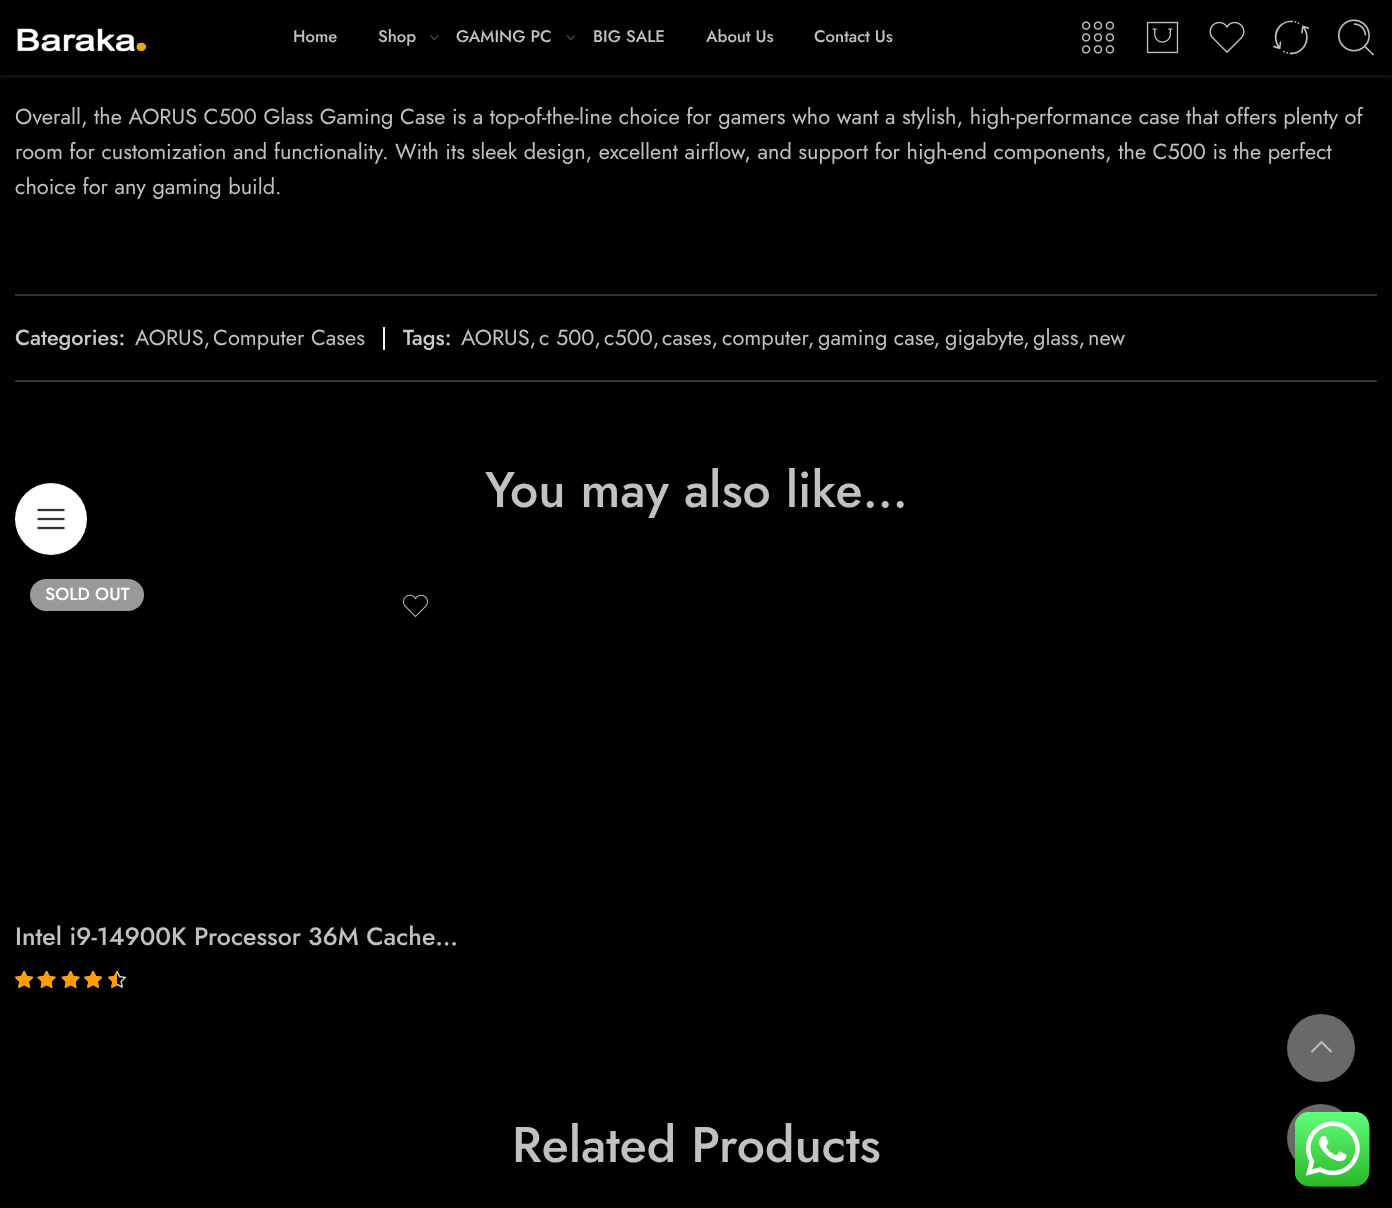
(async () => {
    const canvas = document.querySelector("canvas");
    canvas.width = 1392;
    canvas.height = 1208;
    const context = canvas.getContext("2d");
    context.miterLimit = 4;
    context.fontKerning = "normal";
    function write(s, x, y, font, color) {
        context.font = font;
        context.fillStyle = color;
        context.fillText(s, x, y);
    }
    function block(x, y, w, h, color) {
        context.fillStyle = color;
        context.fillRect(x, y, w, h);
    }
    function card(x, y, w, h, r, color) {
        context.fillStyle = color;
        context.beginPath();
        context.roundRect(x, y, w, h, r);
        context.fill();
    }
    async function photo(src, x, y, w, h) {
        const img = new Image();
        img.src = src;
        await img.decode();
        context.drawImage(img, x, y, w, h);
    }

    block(0, 0, 1392, 1208, "rgb(0, 0, 0)");
    context.fillStyle = "rgba(255, 255, 255, 0.1)";
    context.filter = "blur(2px)";
    context.beginPath();
    context.rect(0, 2, 1392, 75);
    context.fill();
    context.filter = "none";
    block(0, 0, 1392, 75, "rgb(0, 0, 0)");
    await photo("media/1.png", 17, 28, 130, 24);
    write("Home", 293, 42, "500 16.75px Jost", "rgb(193, 193, 193)");
    write("Shop", 378, 42, "500 16.75px Jost", "rgb(193, 193, 193)");
    await photo("media/2.png", 430, 35, 9, 5);
    write("GAMING PC", 456, 42, "500 16.75px Jost", "rgb(193, 193, 193)");
    await photo("media/3.png", 566, 35, 9, 5);
    write("BIG SALE", 593, 42, "500 16.75px Jost", "rgb(193, 193, 193)");
    write("About Us", 706, 42, "500 16.75px Jost", "rgb(193, 193, 193)");
    write("Contact Us", 814, 42, "500 16.75px Jost", "rgb(193, 193, 193)");
    await photo("media/4.png", 1081, 21, 34, 33);
    await photo("media/5.png", 1146, 21, 33, 33);
    await photo("media/6.png", 1209, 21, 36, 32);
    await photo("media/7.png", 1273, 20, 37, 35);
    await photo("media/8.png", 1337, 19, 37, 37);
    write("Overall, the AORUS C500 Glass Gaming Case is a top-of-the-line choice for gamers who want a stylish, high-performance case that offers plenty of", 15, 124, "21.75px Jost", "rgb(193, 193, 193)");
    write("room for customization and functionality. With its sleek design, excellent airflow, and support for high-end components, the C500 is the perfect", 15, 159, "21.75px Jost", "rgb(193, 193, 193)");
    write("choice for any gaming build.", 15, 194, "21.75px Jost", "rgb(193, 193, 193)");
    block(15, 294, 1362, 2, "rgb(51, 51, 51)");
    block(15, 380, 1362, 2, "rgb(51, 51, 51)");
    write("Categories:", 15, 345, "500 21.75px Jost", "rgb(204, 204, 204)");
    write("AORUS,", 135, 345, "21.75px Jost", "rgb(193, 193, 193)");
    write("Computer Cases", 213, 345, "21.75px Jost", "rgb(193, 193, 193)");
    block(383, 327, 2, 23, "rgb(239, 239, 239)");
    write("Tags:", 403, 345, "500 21.75px Jost", "rgb(204, 204, 204)");
    write("AORUS,", 461, 345, "21.75px Jost", "rgb(193, 193, 193)");
    write("c 500,", 539, 345, "21.75px Jost", "rgb(193, 193, 193)");
    write("c500,", 604, 345, "21.75px Jost", "rgb(193, 193, 193)");
    write("cases,", 662, 345, "21.75px Jost", "rgb(193, 193, 193)");
    write("computer,", 722, 345, "21.75px Jost", "rgb(193, 193, 193)");
    write("gaming case,", 818, 345, "21.75px Jost", "rgb(193, 193, 193)");
    write("gigabyte,", 945, 345, "21.75px Jost", "rgb(193, 193, 193)");
    write("glass,", 1033, 345, "21.75px Jost", "rgb(193, 193, 193)");
    write("new", 1088, 345, "21.75px Jost", "rgb(193, 193, 193)");
    context.fillStyle = "rgb(255, 255, 255)";
    context.beginPath();
    context.arc(51, 519, 36, 0, Math.PI * 2);
    context.fill();
    await photo("media/9.png", 37, 508, 28, 22);
    write("You may also like…", 485, 507, "500 50px Jost", "rgb(193, 193, 193)");
    card(30, 579, 114, 32, 16, "rgb(153, 153, 153)");
    write("SOLD OUT", 45, 600, "500 17.5px Jost", "rgb(255, 255, 255)");
    await photo("media/10.png", 403, 594, 25, 24);
    write("Intel i9-14900K Processor", 15, 945, "500 25px Jost", "rgb(193, 193, 193)");
    write("36M Cache…", 308, 945, "500 25px Jost", "rgb(193, 193, 193)");
    await photo("media/11.png", 15, 971, 19, 17);
    await photo("media/12.png", 37, 971, 19, 17);
    await photo("media/12.png", 61, 971, 19, 17);
    await photo("media/11.png", 84, 971, 19, 17);
    await photo("media/13.png", 108, 971, 18, 17);
    await photo("media/14.png", 15, 971, 19, 17);
    await photo("media/15.png", 37, 971, 19, 17);
    await photo("media/15.png", 61, 971, 19, 17);
    await photo("media/14.png", 84, 971, 19, 17);
    await photo("media/16.png", 108, 971, 9, 17);
    write("Related Products", 512, 1162, "500 50px Jost", "rgb(193, 193, 193)");
    context.fillStyle = "rgb(105, 105, 105)";
    context.beginPath();
    context.arc(1321, 1048, 34, 0, Math.PI * 2);
    context.fill();
    await photo("media/17.png", 1310, 1040, 23, 13);
    context.beginPath();
    context.arc(1321, 1138, 34, 0, Math.PI * 2);
    context.fill();
    await photo("media/18.png", 1295, 1112, 75, 75);
})();
